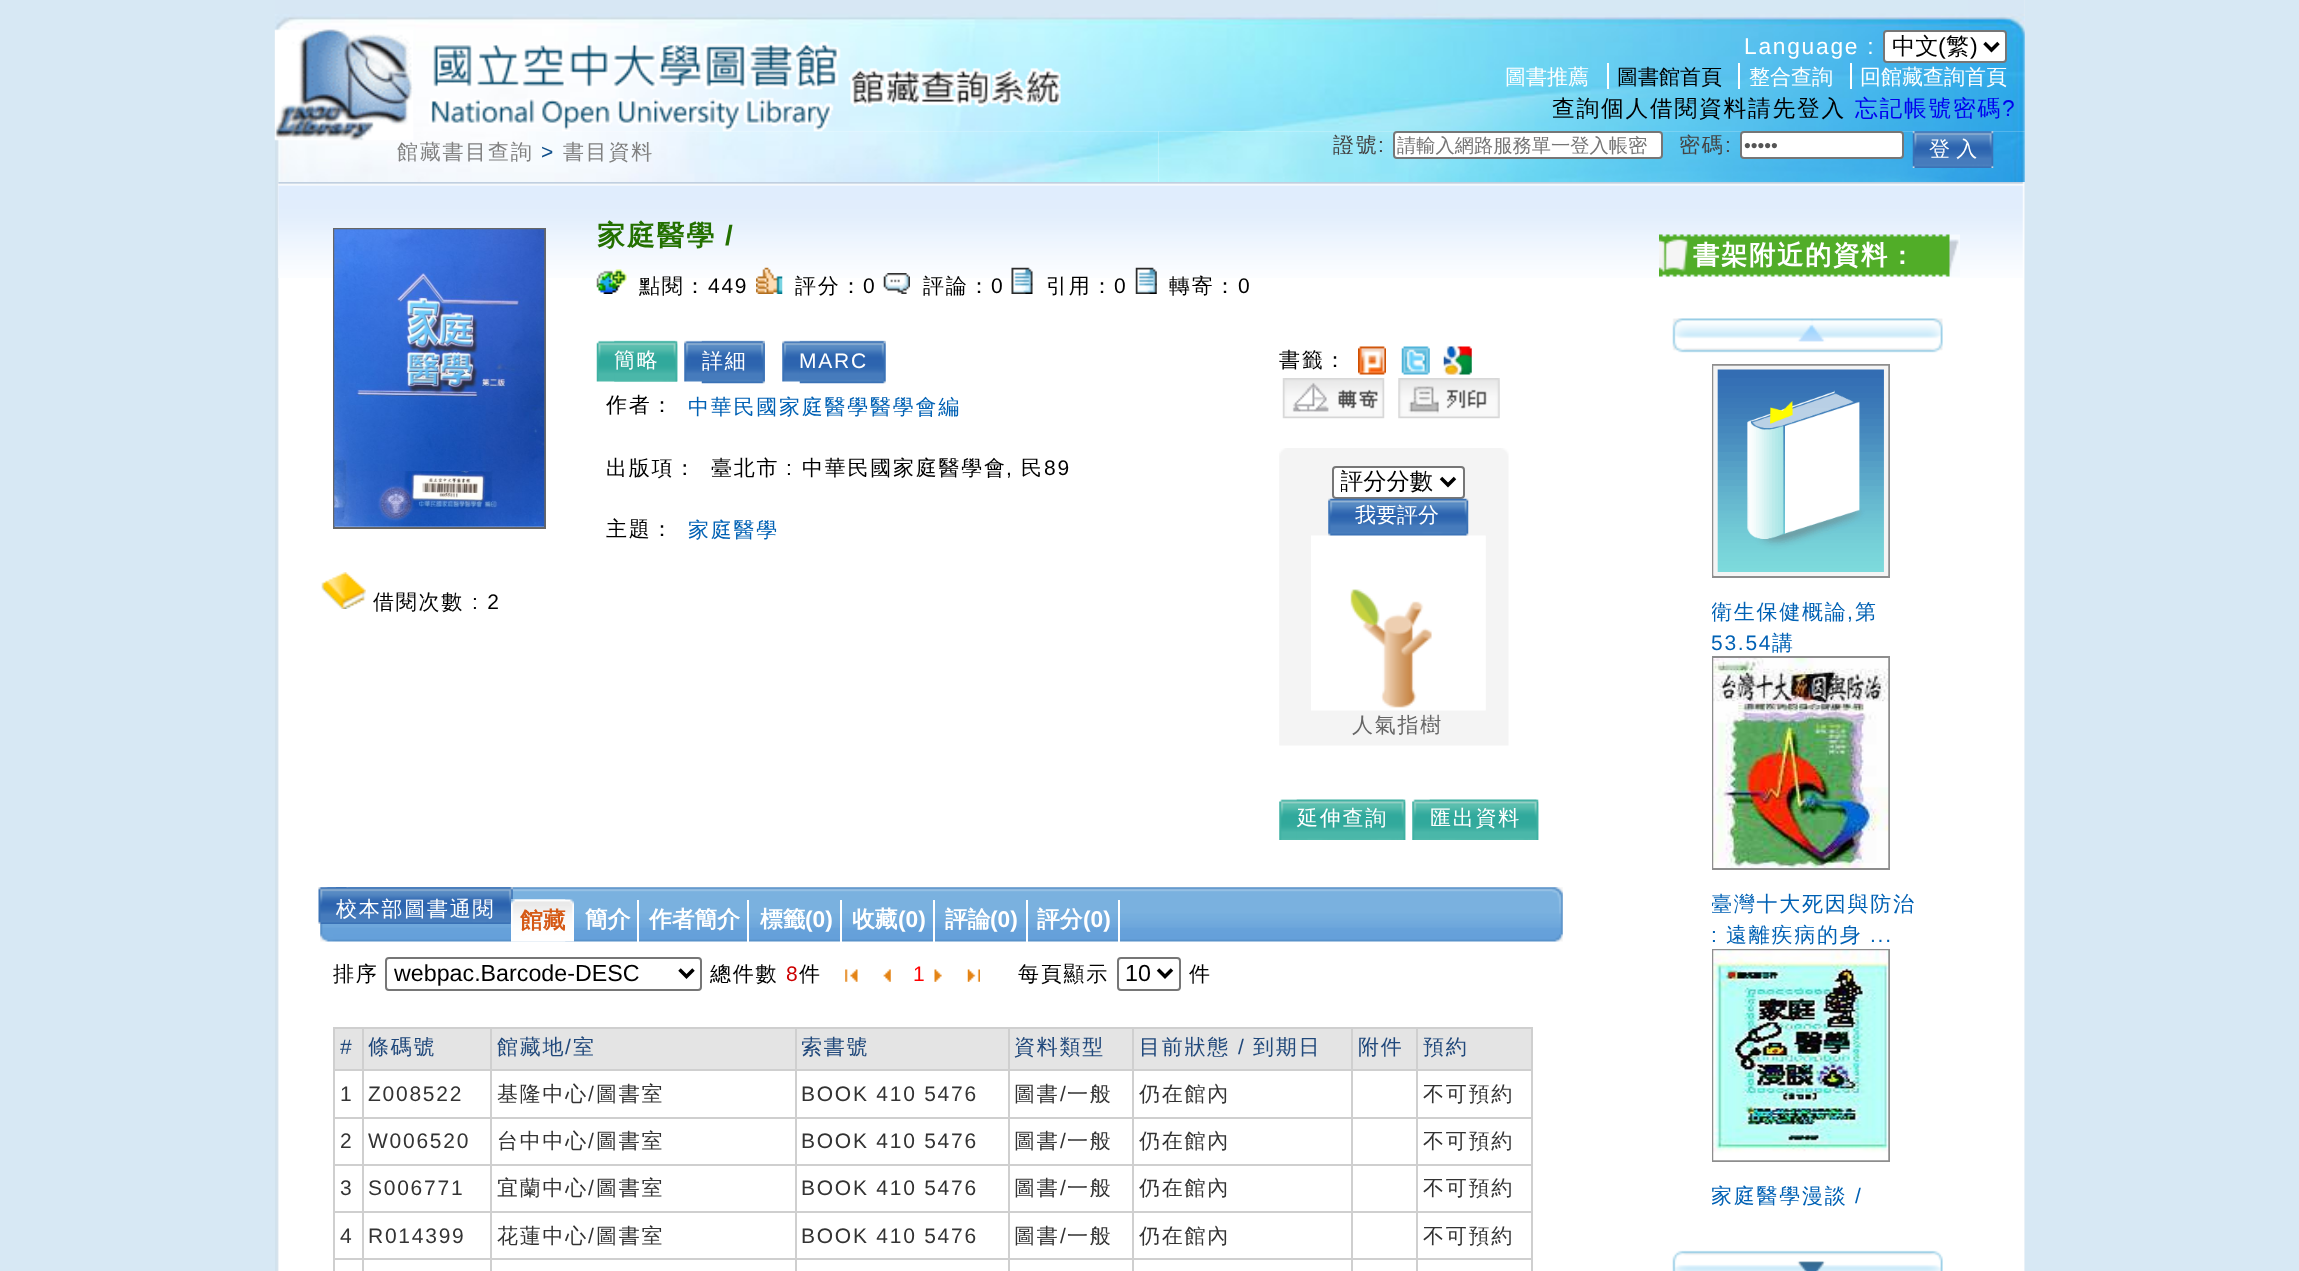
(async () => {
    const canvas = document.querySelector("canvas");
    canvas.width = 2299;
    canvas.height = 1271;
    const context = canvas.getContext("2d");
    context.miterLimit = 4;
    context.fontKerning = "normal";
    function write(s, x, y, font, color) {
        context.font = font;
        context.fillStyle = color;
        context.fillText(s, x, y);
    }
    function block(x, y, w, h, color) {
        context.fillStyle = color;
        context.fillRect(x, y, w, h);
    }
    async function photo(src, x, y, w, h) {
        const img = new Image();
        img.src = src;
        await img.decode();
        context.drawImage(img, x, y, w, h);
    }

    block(0, 0, 2299, 1271, "rgb(215, 232, 244)");
    await photo("media/1.png", 275, 0, 1750, 1271);
    await photo("media/2.png", 274, 0, 1751, 132);
    await photo("media/4.png", 278, 131, 881, 51);
    await photo("media/3.png", 274, 29, 787, 112);
    context.letterSpacing = "1.75px";
    write("Language :", 1744, 54, "22.75px Liberation Sans", "rgb(255, 255, 255)");
    context.beginPath();
    context.roundRect(1884, 31, 122, 31, 3);
    context.fill();
    context.strokeStyle = "rgb(118, 118, 118)";
    context.lineWidth = 2;
    context.stroke();
    context.beginPath();
    context.moveTo(1984.5, 43);
    context.lineTo(1991.5, 50);
    context.lineTo(1998.5, 43);
    context.strokeStyle = "rgb(0, 0, 0)";
    context.lineWidth = 3.5;
    context.stroke();
    context.letterSpacing = "0px";
    write("中文", 1892, 54, "500 23.25px WenQuanYi Zen Hei", "rgb(0, 0, 0)");
    write("(", 1938, 54, "23.25px Liberation Sans", "rgb(0, 0, 0)");
    write("繁", 1946, 54, "500 23.25px WenQuanYi Zen Hei", "rgb(0, 0, 0)");
    write(")", 1970, 54, "23.25px Liberation Sans", "rgb(0, 0, 0)");
    write("圖書推薦", 1505, 84, "500 21px WenQuanYi Zen Hei", "rgb(255, 255, 255)");
    write("圖書館首頁", 1617, 84, "500 21px WenQuanYi Zen Hei", "rgb(0, 0, 0)");
    block(1607, 63, 2, 26, "rgb(255, 255, 255)");
    write("整合查詢", 1749, 84, "500 21px WenQuanYi Zen Hei", "rgb(255, 255, 255)");
    block(1738, 63, 2, 26, "rgb(255, 255, 255)");
    write("回館藏查詢首頁", 1860, 84, "500 21px WenQuanYi Zen Hei", "rgb(255, 255, 255)");
    block(1850, 63, 2, 26, "rgb(255, 255, 255)");
    context.letterSpacing = "1.75px";
    write("查詢個人借閱資料請先登入", 1552, 116, "500 22.75px WenQuanYi Zen Hei", "rgb(0, 0, 0)");
    write("忘記帳號密碼", 1855, 116, "500 22.75px WenQuanYi Zen Hei", "rgb(0, 0, 238)");
    write("?", 2002, 116, "22.75px Liberation Sans", "rgb(0, 0, 238)");
    write("館藏書目查詢", 397, 159, "500 21px WenQuanYi Zen Hei", "rgb(129, 129, 129)");
    write(">", 541, 159, "21px Liberation Sans", "rgb(15, 79, 139)");
    write("書目資料", 563, 159, "500 21px WenQuanYi Zen Hei", "rgb(129, 129, 129)");
    await photo("media/5.png", 1158, 131, 867, 51);
    write("證號", 1333, 152, "500 21px WenQuanYi Zen Hei", "rgb(68, 68, 68)");
    write(":", 1378, 152, "21px Liberation Sans", "rgb(68, 68, 68)");
    context.fillStyle = "rgb(255, 255, 255)";
    context.beginPath();
    context.roundRect(1394, 132, 268, 26, 3);
    context.fill();
    context.strokeStyle = "rgb(118, 118, 118)";
    context.lineWidth = 2;
    context.stroke();
    context.letterSpacing = "0px";
    write("請輸入網路服務單一登入帳密", 1397, 152, "500 19.25px WenQuanYi Zen Hei", "rgb(117, 117, 117)");
    context.letterSpacing = "1.75px";
    write("密碼", 1679, 152, "500 21px WenQuanYi Zen Hei", "rgb(68, 68, 68)");
    write(":", 1725, 152, "21px Liberation Sans", "rgb(68, 68, 68)");
    context.fillStyle = "rgb(255, 255, 255)";
    context.beginPath();
    context.roundRect(1741, 132, 162, 26, 3);
    context.fill();
    context.stroke();
    context.letterSpacing = "0px";
    write("•••••", 1744, 152, "19.25px Liberation Sans", "rgb(85, 85, 85)");
    await photo("media/6.png", 1912, 131, 82, 37);
    write("登 入", 1929, 156, "500 21px WenQuanYi Zen Hei", "rgb(255, 255, 255)");
    await photo("media/7.png", 278, 182, 1746, 96);
    context.strokeStyle = "rgb(102, 102, 102)";
    context.strokeRect(334, 229, 211, 299);
    await photo("media/8.png", 334, 229, 211, 298);
    await photo("media/9.png", 321, 572, 45, 37);
    context.letterSpacing = "1.75px";
    write("借閱次數", 373, 609, "500 21px WenQuanYi Zen Hei", "rgb(0, 0, 0)");
    write(": 2", 472, 609, "21px Liberation Sans", "rgb(0, 0, 0)");
    write("家庭醫學", 597, 245, "bold 28px WenQuanYi Zen Hei", "rgb(35, 112, 0)");
    write("/", 725, 245, "bold 28px Liberation Sans", "rgb(35, 112, 0)");
    await photo("media/10.png", 596, 269, 31, 25);
    write("點閱：", 639, 293, "500 21px WenQuanYi Zen Hei", "rgb(0, 0, 0)");
    write("449", 708, 293, "21px Liberation Sans", "rgb(0, 0, 0)");
    await photo("media/11.png", 756, 267, 27, 27);
    write("評分：", 795, 293, "500 21px WenQuanYi Zen Hei", "rgb(0, 0, 0)");
    write("0", 863, 293, "21px Liberation Sans", "rgb(0, 0, 0)");
    await photo("media/12.png", 883, 273, 27, 21);
    write("評論：", 923, 293, "500 21px WenQuanYi Zen Hei", "rgb(0, 0, 0)");
    write("0", 991, 293, "21px Liberation Sans", "rgb(0, 0, 0)");
    await photo("media/13.png", 1011, 267, 22, 27);
    write("引用：", 1046, 293, "500 21px WenQuanYi Zen Hei", "rgb(0, 0, 0)");
    write("0", 1114, 293, "21px Liberation Sans", "rgb(0, 0, 0)");
    await photo("media/14.png", 1135, 267, 22, 27);
    write("轉寄：", 1169, 293, "500 21px WenQuanYi Zen Hei", "rgb(0, 0, 0)");
    write("0", 1238, 293, "21px Liberation Sans", "rgb(0, 0, 0)");
    await photo("media/15.png", 596, 340, 82, 42);
    await photo("media/16.png", 614, 340, 64, 42);
    write("簡略", 614, 367, "500 21px WenQuanYi Zen Hei", "rgb(255, 255, 255)");
    await photo("media/17.png", 684, 340, 81, 42);
    await photo("media/18.png", 701, 340, 64, 44);
    write("詳細", 702, 368, "500 21px WenQuanYi Zen Hei", "rgb(255, 255, 255)");
    await photo("media/19.png", 782, 340, 104, 42);
    await photo("media/20.png", 799, 340, 87, 44);
    write("MARC", 799, 368, "21px Liberation Sans", "rgb(255, 255, 255)");
    write("作者：", 606, 412, "500 21px WenQuanYi Zen Hei", "rgb(0, 0, 0)");
    write("中華民國家庭醫學醫學會編", 688, 414, "500 21px WenQuanYi Zen Hei", "rgb(0, 97, 180)");
    write("出版項：", 606, 475, "500 21px WenQuanYi Zen Hei", "rgb(0, 0, 0)");
    write("臺北市", 711, 475, "500 21px WenQuanYi Zen Hei", "rgb(0, 0, 0)");
    write(":", 786, 475, "21px Liberation Sans", "rgb(0, 0, 0)");
    write("中華民國家庭醫學會", 802, 475, "500 21px WenQuanYi Zen Hei", "rgb(0, 0, 0)");
    write(",", 1006, 475, "21px Liberation Sans", "rgb(0, 0, 0)");
    write("民", 1021, 475, "500 21px WenQuanYi Zen Hei", "rgb(0, 0, 0)");
    write("89", 1044, 475, "21px Liberation Sans", "rgb(0, 0, 0)");
    write("主題：", 606, 536, "500 21px WenQuanYi Zen Hei", "rgb(0, 0, 0)");
    write("家庭醫學", 688, 537, "500 21px WenQuanYi Zen Hei", "rgb(0, 97, 180)");
    write("書籤：", 1279, 367, "500 21px WenQuanYi Zen Hei", "rgb(0, 0, 0)");
    await photo("media/21.png", 1358, 346, 28, 29);
    await photo("media/22.png", 1401, 346, 29, 29);
    await photo("media/23.png", 1443, 346, 29, 29);
    await photo("media/24.png", 1282, 378, 103, 41);
    await photo("media/25.png", 1398, 378, 102, 41);
    await photo("media/26.png", 1279, 448, 230, 298);
    context.fillStyle = "rgb(255, 255, 255)";
    context.beginPath();
    context.roundRect(1333, 467, 131, 31, 3);
    context.fill();
    context.strokeStyle = "rgb(118, 118, 118)";
    context.stroke();
    context.beginPath();
    context.moveTo(1441, 478);
    context.lineTo(1448, 485);
    context.lineTo(1455, 478);
    context.strokeStyle = "rgb(0, 0, 0)";
    context.lineWidth = 3.5;
    context.stroke();
    context.save();
    context.beginPath();
    context.rect(1341, 467, 94, 30);
    context.clip();
    context.letterSpacing = "0px";
    write("評分分數", 1340, 489, "500 23.25px WenQuanYi Zen Hei", "rgb(0, 0, 0)");
    context.restore();
    await photo("media/28.png", 1311, 535, 175, 176);
    await photo("media/27.png", 1328, 498, 141, 38);
    context.letterSpacing = "0px";
    write("我要評分", 1355, 522, "500 21px WenQuanYi Zen Hei", "rgb(255, 255, 255)");
    context.letterSpacing = "1.75px";
    write("人氣指樹", 1352, 732, "500 21px WenQuanYi Zen Hei", "rgb(102, 102, 102)");
    await photo("media/29.png", 1279, 799, 127, 41);
    await photo("media/30.png", 1296, 799, 110, 41);
    write("延伸查詢", 1297, 825, "500 21px WenQuanYi Zen Hei", "rgb(255, 255, 255)");
    await photo("media/29.png", 1412, 799, 127, 41);
    await photo("media/31.png", 1429, 799, 110, 41);
    write("匯出資料", 1430, 825, "500 21px WenQuanYi Zen Hei", "rgb(255, 255, 255)");
    await photo("media/34.png", 320, 887, 1243, 55);
    await photo("media/32.png", 318, 887, 31, 37);
    await photo("media/33.png", 336, 887, 177, 37);
    write("校本部圖書通閱", 336, 916, "500 21px WenQuanYi Zen Hei", "rgb(255, 255, 255)");
    await photo("media/35.png", 511, 899, 63, 43);
    await photo("media/36.png", 511, 899, 55, 43);
    context.letterSpacing = "0px";
    write("館藏", 520, 928, "bold 22.75px WenQuanYi Zen Hei", "rgb(213, 89, 21)");
    block(637, 900, 2, 42, "rgb(255, 255, 255)");
    write("簡介", 585, 927, "bold 22.75px WenQuanYi Zen Hei", "rgb(255, 255, 255)");
    block(747, 900, 2, 42, "rgb(255, 255, 255)");
    write("作者簡介", 649, 927, "bold 22.75px WenQuanYi Zen Hei", "rgb(255, 255, 255)");
    block(840, 900, 2, 42, "rgb(255, 255, 255)");
    write("標籤", 760, 927, "bold 22.75px WenQuanYi Zen Hei", "rgb(255, 255, 255)");
    write("(0)", 805, 927, "bold 22.75px Liberation Sans", "rgb(255, 255, 255)");
    block(933, 900, 2, 42, "rgb(255, 255, 255)");
    write("收藏", 852, 927, "bold 22.75px WenQuanYi Zen Hei", "rgb(255, 255, 255)");
    write("(0)", 898, 927, "bold 22.75px Liberation Sans", "rgb(255, 255, 255)");
    block(1026, 900, 2, 42, "rgb(255, 255, 255)");
    write("評論", 945, 927, "bold 22.75px WenQuanYi Zen Hei", "rgb(255, 255, 255)");
    write("(0)", 990, 927, "bold 22.75px Liberation Sans", "rgb(255, 255, 255)");
    block(1118, 900, 2, 42, "rgb(255, 255, 255)");
    write("評分", 1037, 927, "bold 22.75px WenQuanYi Zen Hei", "rgb(255, 255, 255)");
    write("(0)", 1083, 927, "bold 22.75px Liberation Sans", "rgb(255, 255, 255)");
    context.letterSpacing = "1.75px";
    write("排序", 333, 981, "500 21px WenQuanYi Zen Hei", "rgb(0, 0, 0)");
    context.beginPath();
    context.roundRect(386, 958, 315, 32, 3);
    context.strokeStyle = "rgb(118, 118, 118)";
    context.lineWidth = 2;
    context.stroke();
    context.beginPath();
    context.moveTo(679.5, 969.5);
    context.lineTo(686.5, 976.5);
    context.lineTo(693.5, 969.5);
    context.strokeStyle = "rgb(0, 0, 0)";
    context.lineWidth = 3.5;
    context.stroke();
    context.letterSpacing = "0px";
    write("webpac.Barcode-DESC", 394, 981, "23.25px Liberation Sans", "rgb(0, 0, 0)");
    context.letterSpacing = "1.75px";
    write("總件數", 710, 981, "500 21px WenQuanYi Zen Hei", "rgb(0, 0, 0)");
    write("8", 786, 981, "21px Liberation Sans", "rgb(204, 0, 0)");
    write("件", 799, 981, "500 21px WenQuanYi Zen Hei", "rgb(0, 0, 0)");
    await photo("media/37.png", 845, 969, 13, 13);
    await photo("media/38.png", 883, 969, 8, 13);
    write("1", 913, 981, "21px Liberation Sans", "rgb(255, 0, 0)");
    await photo("media/39.png", 934, 969, 8, 13);
    await photo("media/40.png", 967, 969, 13, 13);
    write("每頁顯示", 1018, 981, "500 21px WenQuanYi Zen Hei", "rgb(0, 0, 0)");
    context.beginPath();
    context.roundRect(1118, 958, 62, 32, 3);
    context.strokeStyle = "rgb(118, 118, 118)";
    context.lineWidth = 2;
    context.stroke();
    context.beginPath();
    context.moveTo(1158, 969.5);
    context.lineTo(1165, 976.5);
    context.lineTo(1172, 969.5);
    context.strokeStyle = "rgb(0, 0, 0)";
    context.lineWidth = 3.5;
    context.stroke();
    context.letterSpacing = "0px";
    write("10", 1125, 981, "23.25px Liberation Sans", "rgb(0, 0, 0)");
    context.letterSpacing = "1.75px";
    write("件", 1189, 981, "500 21px WenQuanYi Zen Hei", "rgb(0, 0, 0)");
    block(333, 1027, 1200, 2, "rgb(207, 207, 207)");
    block(1531, 1027, 2, 244, "rgb(207, 207, 207)");
    block(333, 1027, 2, 244, "rgb(207, 207, 207)");
    block(335, 1029, 27, 40, "rgb(228, 228, 228)");
    block(1416, 1258, 2, 13, "rgb(207, 207, 207)");
    block(1416, 1258, 117, 2, "rgb(207, 207, 207)");
    block(1416, 1211, 2, 49, "rgb(207, 207, 207)");
    block(1416, 1211, 117, 2, "rgb(207, 207, 207)");
    block(1416, 1164, 2, 49, "rgb(207, 207, 207)");
    block(1416, 1164, 117, 2, "rgb(207, 207, 207)");
    block(1416, 1117, 2, 49, "rgb(207, 207, 207)");
    block(1416, 1117, 117, 2, "rgb(207, 207, 207)");
    block(1416, 1069, 2, 49, "rgb(207, 207, 207)");
    block(1416, 1069, 117, 2, "rgb(207, 207, 207)");
    block(1416, 1027, 2, 44, "rgb(207, 207, 207)");
    block(1351, 1258, 2, 13, "rgb(207, 207, 207)");
    block(1351, 1258, 67, 2, "rgb(207, 207, 207)");
    block(1351, 1211, 2, 49, "rgb(207, 207, 207)");
    block(1351, 1211, 67, 2, "rgb(207, 207, 207)");
    block(1351, 1164, 2, 49, "rgb(207, 207, 207)");
    block(1351, 1164, 67, 2, "rgb(207, 207, 207)");
    block(1351, 1117, 2, 49, "rgb(207, 207, 207)");
    block(1351, 1117, 67, 2, "rgb(207, 207, 207)");
    block(1351, 1069, 2, 49, "rgb(207, 207, 207)");
    block(1351, 1069, 67, 2, "rgb(207, 207, 207)");
    block(1351, 1027, 2, 44, "rgb(207, 207, 207)");
    block(1132, 1258, 2, 13, "rgb(207, 207, 207)");
    block(1132, 1258, 221, 2, "rgb(207, 207, 207)");
    block(1132, 1211, 2, 49, "rgb(207, 207, 207)");
    block(1132, 1211, 221, 2, "rgb(207, 207, 207)");
    block(1132, 1164, 2, 49, "rgb(207, 207, 207)");
    block(1132, 1164, 221, 2, "rgb(207, 207, 207)");
    block(1132, 1117, 2, 49, "rgb(207, 207, 207)");
    block(1132, 1117, 221, 2, "rgb(207, 207, 207)");
    block(1132, 1069, 2, 49, "rgb(207, 207, 207)");
    block(1132, 1069, 221, 2, "rgb(207, 207, 207)");
    block(1132, 1027, 2, 44, "rgb(207, 207, 207)");
    block(1008, 1258, 2, 13, "rgb(207, 207, 207)");
    block(1008, 1258, 126, 2, "rgb(207, 207, 207)");
    block(1008, 1211, 2, 49, "rgb(207, 207, 207)");
    block(1008, 1211, 126, 2, "rgb(207, 207, 207)");
    block(1008, 1164, 2, 49, "rgb(207, 207, 207)");
    block(1008, 1164, 126, 2, "rgb(207, 207, 207)");
    block(1008, 1117, 2, 49, "rgb(207, 207, 207)");
    block(1008, 1117, 126, 2, "rgb(207, 207, 207)");
    block(1008, 1069, 2, 49, "rgb(207, 207, 207)");
    block(1008, 1069, 126, 2, "rgb(207, 207, 207)");
    block(1008, 1027, 2, 44, "rgb(207, 207, 207)");
    block(795, 1258, 2, 13, "rgb(207, 207, 207)");
    block(795, 1258, 215, 2, "rgb(207, 207, 207)");
    block(795, 1211, 2, 49, "rgb(207, 207, 207)");
    block(795, 1211, 215, 2, "rgb(207, 207, 207)");
    block(795, 1164, 2, 49, "rgb(207, 207, 207)");
    block(795, 1164, 215, 2, "rgb(207, 207, 207)");
    block(795, 1117, 2, 49, "rgb(207, 207, 207)");
    block(795, 1117, 215, 2, "rgb(207, 207, 207)");
    block(795, 1069, 2, 49, "rgb(207, 207, 207)");
    block(795, 1069, 215, 2, "rgb(207, 207, 207)");
    block(795, 1027, 2, 44, "rgb(207, 207, 207)");
    block(490, 1258, 2, 13, "rgb(207, 207, 207)");
    block(490, 1258, 306, 2, "rgb(207, 207, 207)");
    block(490, 1211, 2, 49, "rgb(207, 207, 207)");
    block(490, 1211, 306, 2, "rgb(207, 207, 207)");
    block(490, 1164, 2, 49, "rgb(207, 207, 207)");
    block(490, 1164, 306, 2, "rgb(207, 207, 207)");
    block(490, 1117, 2, 49, "rgb(207, 207, 207)");
    block(490, 1117, 306, 2, "rgb(207, 207, 207)");
    block(490, 1069, 2, 49, "rgb(207, 207, 207)");
    block(490, 1069, 306, 2, "rgb(207, 207, 207)");
    block(490, 1027, 2, 44, "rgb(207, 207, 207)");
    block(362, 1258, 2, 13, "rgb(207, 207, 207)");
    block(362, 1258, 130, 2, "rgb(207, 207, 207)");
    block(362, 1211, 2, 49, "rgb(207, 207, 207)");
    block(362, 1211, 130, 2, "rgb(207, 207, 207)");
    block(362, 1164, 2, 49, "rgb(207, 207, 207)");
    block(362, 1164, 130, 2, "rgb(207, 207, 207)");
    block(362, 1117, 2, 49, "rgb(207, 207, 207)");
    block(362, 1117, 130, 2, "rgb(207, 207, 207)");
    block(362, 1069, 2, 49, "rgb(207, 207, 207)");
    block(362, 1069, 130, 2, "rgb(207, 207, 207)");
    block(362, 1027, 2, 44, "rgb(207, 207, 207)");
    block(333, 1069, 31, 2, "rgb(207, 207, 207)");
    write("#", 340, 1054, "21px Liberation Sans", "rgb(32, 72, 123)");
    block(364, 1029, 126, 40, "rgb(228, 228, 228)");
    write("條碼號", 368, 1054, "500 21px WenQuanYi Zen Hei", "rgb(32, 72, 123)");
    block(492, 1029, 303, 40, "rgb(228, 228, 228)");
    write("館藏地", 497, 1054, "500 21px WenQuanYi Zen Hei", "rgb(32, 72, 123)");
    write("/", 565, 1054, "21px Liberation Sans", "rgb(32, 72, 123)");
    write("室", 573, 1054, "500 21px WenQuanYi Zen Hei", "rgb(32, 72, 123)");
    block(797, 1029, 211, 40, "rgb(228, 228, 228)");
    write("索書號", 801, 1054, "500 21px WenQuanYi Zen Hei", "rgb(32, 72, 123)");
    block(1010, 1029, 122, 40, "rgb(228, 228, 228)");
    write("資料類型", 1014, 1054, "500 21px WenQuanYi Zen Hei", "rgb(32, 72, 123)");
    block(1134, 1029, 217, 40, "rgb(228, 228, 228)");
    write("目前狀態", 1139, 1054, "500 21px WenQuanYi Zen Hei", "rgb(32, 72, 123)");
    write("/", 1238, 1054, "21px Liberation Sans", "rgb(32, 72, 123)");
    write("到期日", 1253, 1054, "500 21px WenQuanYi Zen Hei", "rgb(32, 72, 123)");
    block(1353, 1029, 63, 40, "rgb(228, 228, 228)");
    write("附件", 1358, 1054, "500 21px WenQuanYi Zen Hei", "rgb(32, 72, 123)");
    block(1418, 1029, 113, 40, "rgb(228, 228, 228)");
    write("預約", 1423, 1054, "500 21px WenQuanYi Zen Hei", "rgb(32, 72, 123)");
    block(333, 1117, 31, 2, "rgb(207, 207, 207)");
    write("1", 340, 1101, "21px Liberation Sans", "rgb(51, 51, 51)");
    write("Z008522", 368, 1101, "21px Liberation Sans", "rgb(51, 51, 51)");
    write("基隆中心", 497, 1101, "500 21px WenQuanYi Zen Hei", "rgb(51, 51, 51)");
    write("/", 588, 1101, "21px Liberation Sans", "rgb(51, 51, 51)");
    write("圖書室", 596, 1101, "500 21px WenQuanYi Zen Hei", "rgb(51, 51, 51)");
    write("BOOK 410 5476", 801, 1101, "21px Liberation Sans", "rgb(51, 51, 51)");
    write("圖書", 1014, 1101, "500 21px WenQuanYi Zen Hei", "rgb(51, 51, 51)");
    write("/", 1060, 1101, "21px Liberation Sans", "rgb(51, 51, 51)");
    write("一般", 1067, 1101, "500 21px WenQuanYi Zen Hei", "rgb(51, 51, 51)");
    write("仍在館內", 1139, 1101, "500 21px WenQuanYi Zen Hei", "rgb(51, 51, 51)");
    write("不可預約", 1423, 1101, "500 21px WenQuanYi Zen Hei", "rgb(51, 51, 51)");
    block(333, 1164, 31, 2, "rgb(207, 207, 207)");
    write("2", 340, 1148, "21px Liberation Sans", "rgb(51, 51, 51)");
    write("W006520", 368, 1148, "21px Liberation Sans", "rgb(51, 51, 51)");
    write("台中中心", 497, 1148, "500 21px WenQuanYi Zen Hei", "rgb(51, 51, 51)");
    write("/", 588, 1148, "21px Liberation Sans", "rgb(51, 51, 51)");
    write("圖書室", 596, 1148, "500 21px WenQuanYi Zen Hei", "rgb(51, 51, 51)");
    write("BOOK 410 5476", 801, 1148, "21px Liberation Sans", "rgb(51, 51, 51)");
    write("圖書", 1014, 1148, "500 21px WenQuanYi Zen Hei", "rgb(51, 51, 51)");
    write("/", 1060, 1148, "21px Liberation Sans", "rgb(51, 51, 51)");
    write("一般", 1067, 1148, "500 21px WenQuanYi Zen Hei", "rgb(51, 51, 51)");
    write("仍在館內", 1139, 1148, "500 21px WenQuanYi Zen Hei", "rgb(51, 51, 51)");
    write("不可預約", 1423, 1148, "500 21px WenQuanYi Zen Hei", "rgb(51, 51, 51)");
    block(333, 1211, 31, 2, "rgb(207, 207, 207)");
    write("3", 340, 1195, "21px Liberation Sans", "rgb(51, 51, 51)");
    write("S006771", 368, 1195, "21px Liberation Sans", "rgb(51, 51, 51)");
    write("宜蘭中心", 497, 1195, "500 21px WenQuanYi Zen Hei", "rgb(51, 51, 51)");
    write("/", 588, 1195, "21px Liberation Sans", "rgb(51, 51, 51)");
    write("圖書室", 596, 1195, "500 21px WenQuanYi Zen Hei", "rgb(51, 51, 51)");
    write("BOOK 410 5476", 801, 1195, "21px Liberation Sans", "rgb(51, 51, 51)");
    write("圖書", 1014, 1195, "500 21px WenQuanYi Zen Hei", "rgb(51, 51, 51)");
    write("/", 1060, 1195, "21px Liberation Sans", "rgb(51, 51, 51)");
    write("一般", 1067, 1195, "500 21px WenQuanYi Zen Hei", "rgb(51, 51, 51)");
    write("仍在館內", 1139, 1195, "500 21px WenQuanYi Zen Hei", "rgb(51, 51, 51)");
    write("不可預約", 1423, 1195, "500 21px WenQuanYi Zen Hei", "rgb(51, 51, 51)");
    block(333, 1258, 31, 2, "rgb(207, 207, 207)");
    write("4", 340, 1243, "21px Liberation Sans", "rgb(51, 51, 51)");
    write("R014399", 368, 1243, "21px Liberation Sans", "rgb(51, 51, 51)");
    write("花蓮中心", 497, 1243, "500 21px WenQuanYi Zen Hei", "rgb(51, 51, 51)");
    write("/", 588, 1243, "21px Liberation Sans", "rgb(51, 51, 51)");
    write("圖書室", 596, 1243, "500 21px WenQuanYi Zen Hei", "rgb(51, 51, 51)");
    write("BOOK 410 5476", 801, 1243, "21px Liberation Sans", "rgb(51, 51, 51)");
    write("圖書", 1014, 1243, "500 21px WenQuanYi Zen Hei", "rgb(51, 51, 51)");
    write("/", 1060, 1243, "21px Liberation Sans", "rgb(51, 51, 51)");
    write("一般", 1067, 1243, "500 21px WenQuanYi Zen Hei", "rgb(51, 51, 51)");
    write("仍在館內", 1139, 1243, "500 21px WenQuanYi Zen Hei", "rgb(51, 51, 51)");
    write("不可預約", 1423, 1243, "500 21px WenQuanYi Zen Hei", "rgb(51, 51, 51)");
    await photo("media/41.png", 1659, 234, 301, 43);
    write("書架附近的資料", 1693, 264, "bold 26.25px WenQuanYi Zen Hei", "rgb(255, 255, 255)");
    write(":", 1898, 264, "bold 26.25px Liberation Sans", "rgb(255, 255, 255)");
    await photo("media/42.png", 1672, 318, 271, 35);
    context.strokeStyle = "rgb(141, 141, 141)";
    context.lineWidth = 2;
    context.strokeRect(1713, 365, 176, 212);
    await photo("media/43.png", 1713, 365, 176, 211);
    context.save();
    context.beginPath();
    context.rect(1712, 364, 210, 875);
    context.clip();
    write("衛生保健概論", 1711, 619, "500 21px WenQuanYi Zen Hei", "rgb(0, 97, 180)");
    context.restore();
    write(",", 1847, 619, "21px Liberation Sans", "rgb(0, 97, 180)");
    write("第", 1855, 619, "500 21px WenQuanYi Zen Hei", "rgb(0, 97, 180)");
    write("53.54", 1711, 650, "21px Liberation Sans", "rgb(0, 97, 180)");
    write("講", 1772, 650, "500 21px WenQuanYi Zen Hei", "rgb(0, 97, 180)");
    context.strokeRect(1713, 657, 176, 212);
    await photo("media/44.png", 1713, 658, 176, 210);
    context.save();
    context.beginPath();
    context.rect(1712, 364, 210, 875);
    context.clip();
    write("臺灣十大死因與防治", 1711, 911, "500 21px WenQuanYi Zen Hei", "rgb(0, 97, 180)");
    context.restore();
    write(":", 1711, 942, "21px Liberation Sans", "rgb(0, 97, 180)");
    write("遠離疾病的身", 1726, 942, "500 21px WenQuanYi Zen Hei", "rgb(0, 97, 180)");
    write("...", 1870, 942, "21px Liberation Sans", "rgb(0, 97, 180)");
    context.strokeRect(1713, 950, 176, 211);
    await photo("media/45.png", 1713, 950, 176, 211);
    context.save();
    context.beginPath();
    context.rect(1712, 364, 210, 875);
    context.clip();
    write("家庭醫學漫談", 1711, 1203, "500 21px WenQuanYi Zen Hei", "rgb(0, 97, 180)");
    context.restore();
    write("/", 1855, 1203, "21px Liberation Sans", "rgb(0, 97, 180)");
    await photo("media/46.png", 1672, 1250, 271, 21);
})();
